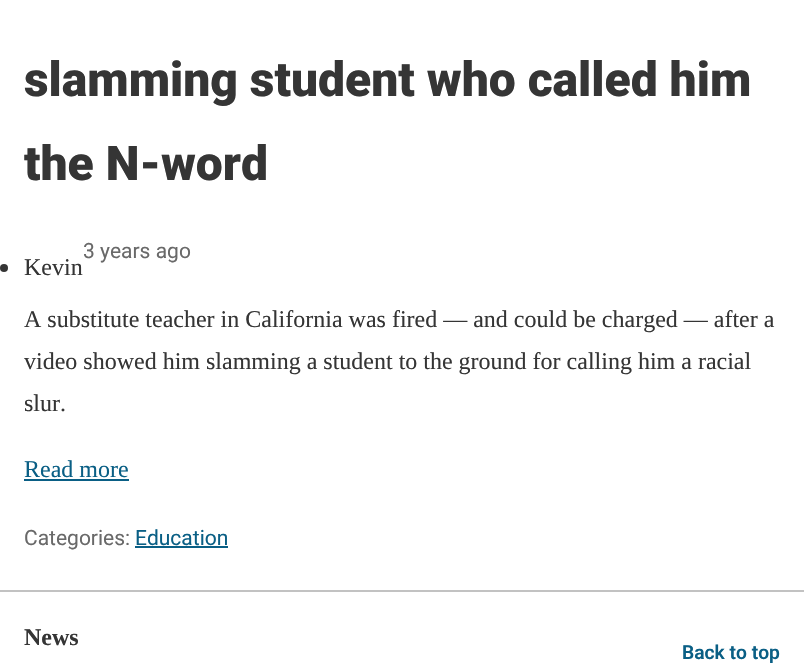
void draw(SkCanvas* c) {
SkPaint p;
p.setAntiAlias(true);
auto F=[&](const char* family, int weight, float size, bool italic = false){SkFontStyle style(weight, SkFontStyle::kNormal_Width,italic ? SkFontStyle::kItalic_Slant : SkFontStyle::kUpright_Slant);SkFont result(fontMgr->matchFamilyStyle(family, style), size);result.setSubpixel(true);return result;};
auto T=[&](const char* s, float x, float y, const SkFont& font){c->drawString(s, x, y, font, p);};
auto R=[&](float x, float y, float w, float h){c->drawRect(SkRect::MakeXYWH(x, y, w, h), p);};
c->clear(0xffffffff);
auto f1 = F("Roboto",900,48);
p.setColor(0xff353535);
T("slamming student who called him",24,96,f1);
T("the N-word",24,180,f1);
auto f2 = F("Roboto",400,21);
p.setColor(0xff696969);
T("3 years ago",83,258,f2);
p.setColor(0xff353535);
c->drawCircle(4,268,4,p);
auto f3 = F("Liberation Serif",400,24);
T("Kevin",24,275,f3);
T("A substitute teacher in California was fired — and could be charged — after a",24,327,f3);
T("video showed him slamming a student to the ground for calling him a racial",24,369,f3);
T("slur.",24,411,f3);
p.setColor(0xff0a5f85);
T("Read more",24,477,f3);
R(24,479,105,2);
p.setColor(0xff696969);
T("Categories:",24,545,f2);
p.setColor(0xff0a5f85);
T("Education",135,545,f2);
R(135,546,93,2);
p.setColor(0xffc2c2c2);
R(0,590,804,2);
auto f4 = F("Liberation Serif",700,24);
p.setColor(0xff353535);
T("News",24,645,f4);
auto f5 = F("Roboto",600,19.25);
p.setColor(0xff0a5f85);
T("Back to top",682,659,f5);
}
